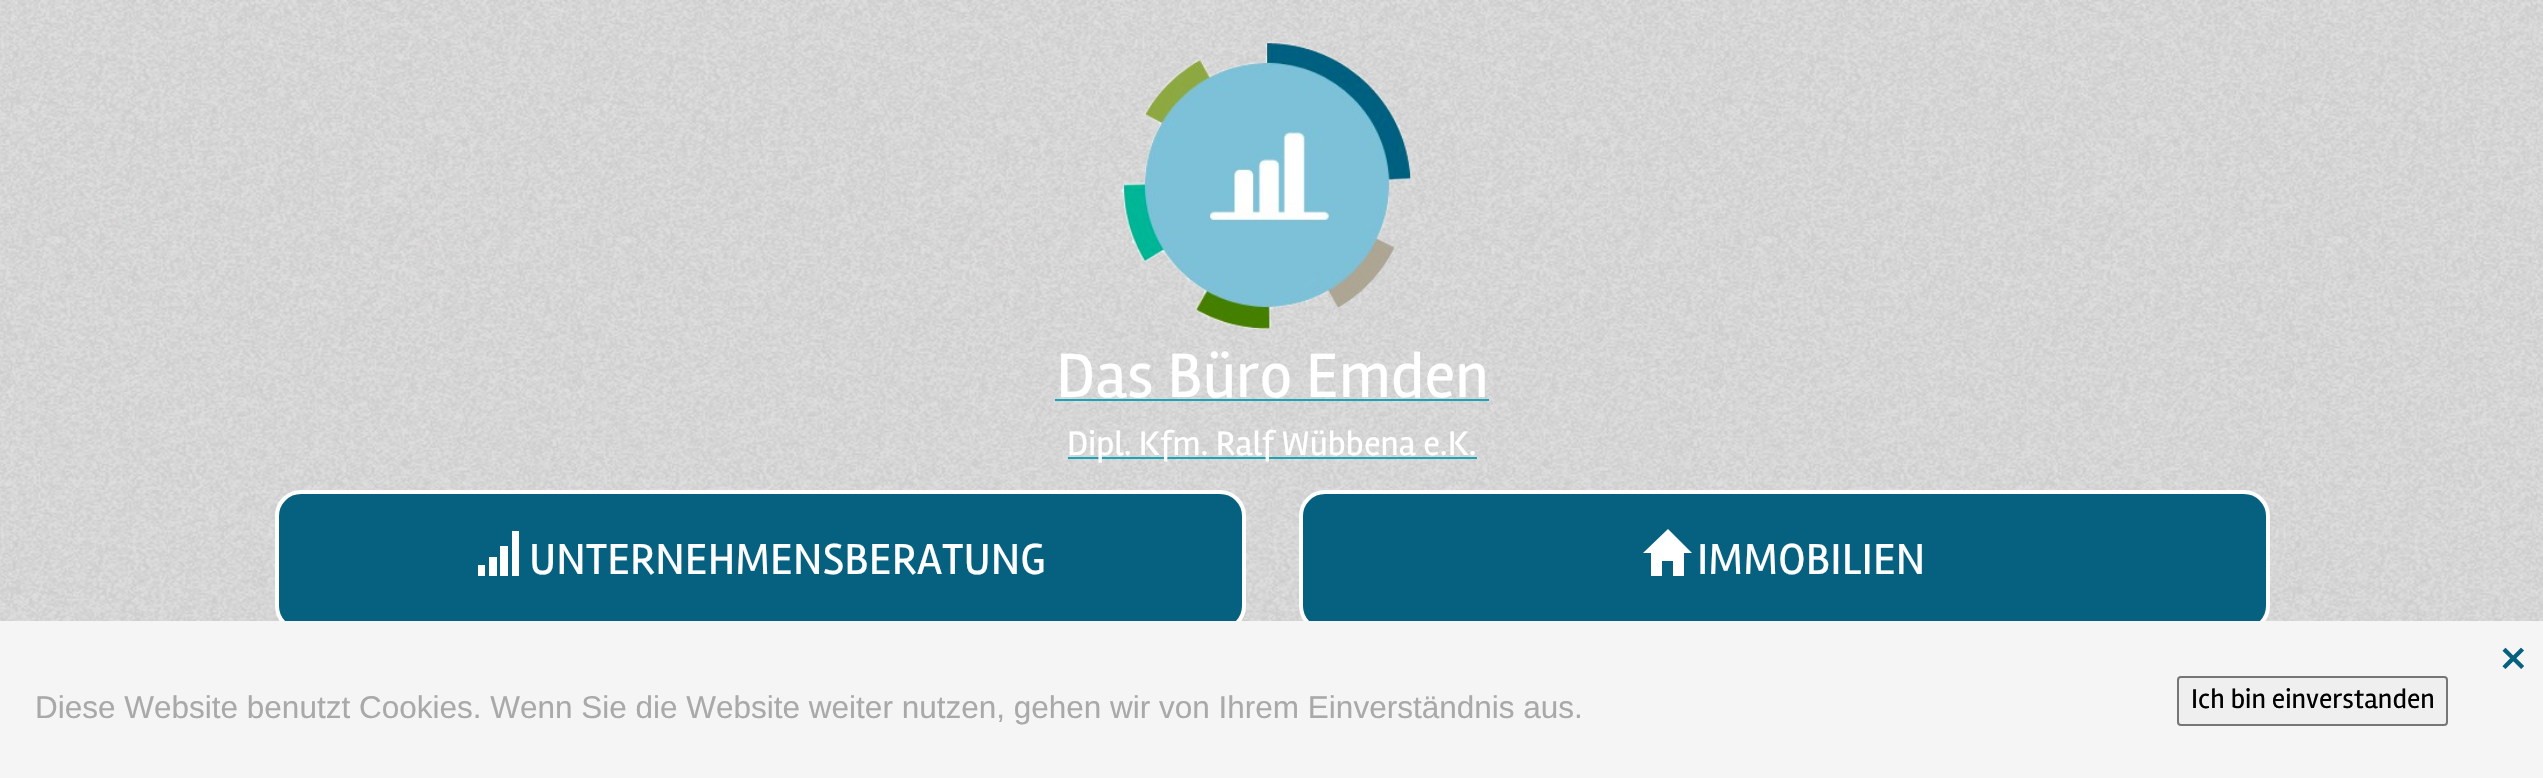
void draw(SkCanvas* c) {
SkPaint p;
p.setAntiAlias(true);
auto F=[&](const char* family, int weight, float size, bool italic = false){SkFontStyle style(weight, SkFontStyle::kNormal_Width,italic ? SkFontStyle::kItalic_Slant : SkFontStyle::kUpright_Slant);SkFont result(fontMgr->matchFamilyStyle(family, style), size);result.setSubpixel(true);return result;};
auto T=[&](const char* s, float x, float y, const SkFont& font){c->drawString(s, x, y, font, p);};
auto R=[&](float x, float y, float w, float h){c->drawRect(SkRect::MakeXYWH(x, y, w, h), p);};
auto I=[&](const char* path, float x, float y, float w, float h){auto image = SkImages::DeferredFromEncodedData(SkData::MakeFromFileName(path));c->drawImageRect(image, SkRect::MakeXYWH(x, y, w, h), SkSamplingOptions());};
auto P=[&](const char* data, bool evenOdd = false){SkPath result = *SkParsePath::FromSVGString(data);if (evenOdd) result.setFillType(SkPathFillType::kEvenOdd);return result;};
c->clear(0xffffffff);
I("1.png",0,0,2543,490);
I("2.png",1121,37,292,293);
auto f1 = F("Rambla",400,64.75);
p.setColor(0xffffffff);
T("Das Büro Emden",1056,397,f1);
p.setColor(0xff18a5b5);
R(1055,399,434,2);
R(1068,457,409,2);
auto f2 = F("Rambla",400,35);
p.setColor(0xffffffff);
T("Dipl. Kfm. Ralf Wübbena e.K.",1067,455,f2);
I("3.png",0,490,2543,131);
p.setColor(0xff05617f);
c->drawRoundRect(SkRect::MakeXYWH(277,492,967,138),24,24,p);
p.setStroke(true);
p.setStrokeWidth(4);
p.setColor(0xffffffff);
c->drawRoundRect(SkRect::MakeXYWH(277,492,967,138),24,24,p);
p.setStroke(false);
c->drawPath(P("M478 576h7v-11h-7zm11 0v-19h8v19zm11 0v-30h8v30zm12 0v-45h7v45z"),p);
auto f3 = F("Rambla",400,44.75);
T("UNTERNEHMENSBERATUNG",529,574,f3);
p.setColor(0xff05617f);
c->drawRoundRect(SkRect::MakeXYWH(1301,492,967,138),24,24,p);
p.setStroke(true);
p.setColor(0xffffffff);
c->drawRoundRect(SkRect::MakeXYWH(1301,492,967,138),24,24,p);
p.setStroke(false);
c->drawPath(P("M1643 553l25-24l24 24h-8v23h-11v-15h-11v15h-11v-23z"),p);
T("IMMOBILIEN",1697,574,f3);
p.setColor(0xfff5f5f5);
R(0,621,2543,157);
auto f4 = F("Rambla",400,52);
p.setColor(0xff05617f);
T("×",2500,674,f4);
auto f5 = F("Liberation Sans",400,31.5);
p.setColor(0xffa9a9a9);
T("Diese Website benutzt Cookies. Wenn Sie die Website weiter nutzen, gehen wir von Ihrem Einverständnis aus.",35,718,f5);
p.setColor(0xffefefef);
c->drawRoundRect(SkRect::MakeXYWH(2178,677,269,48),3,3,p);
p.setStroke(true);
p.setStrokeWidth(2);
p.setColor(0xff767676);
c->drawRoundRect(SkRect::MakeXYWH(2178,677,269,48),3,3,p);
auto f6 = F("Rambla",400,28);
p.setStroke(false);
p.setColor(0xff000000);
T("Ich bin einverstanden",2191,708,f6);
}
